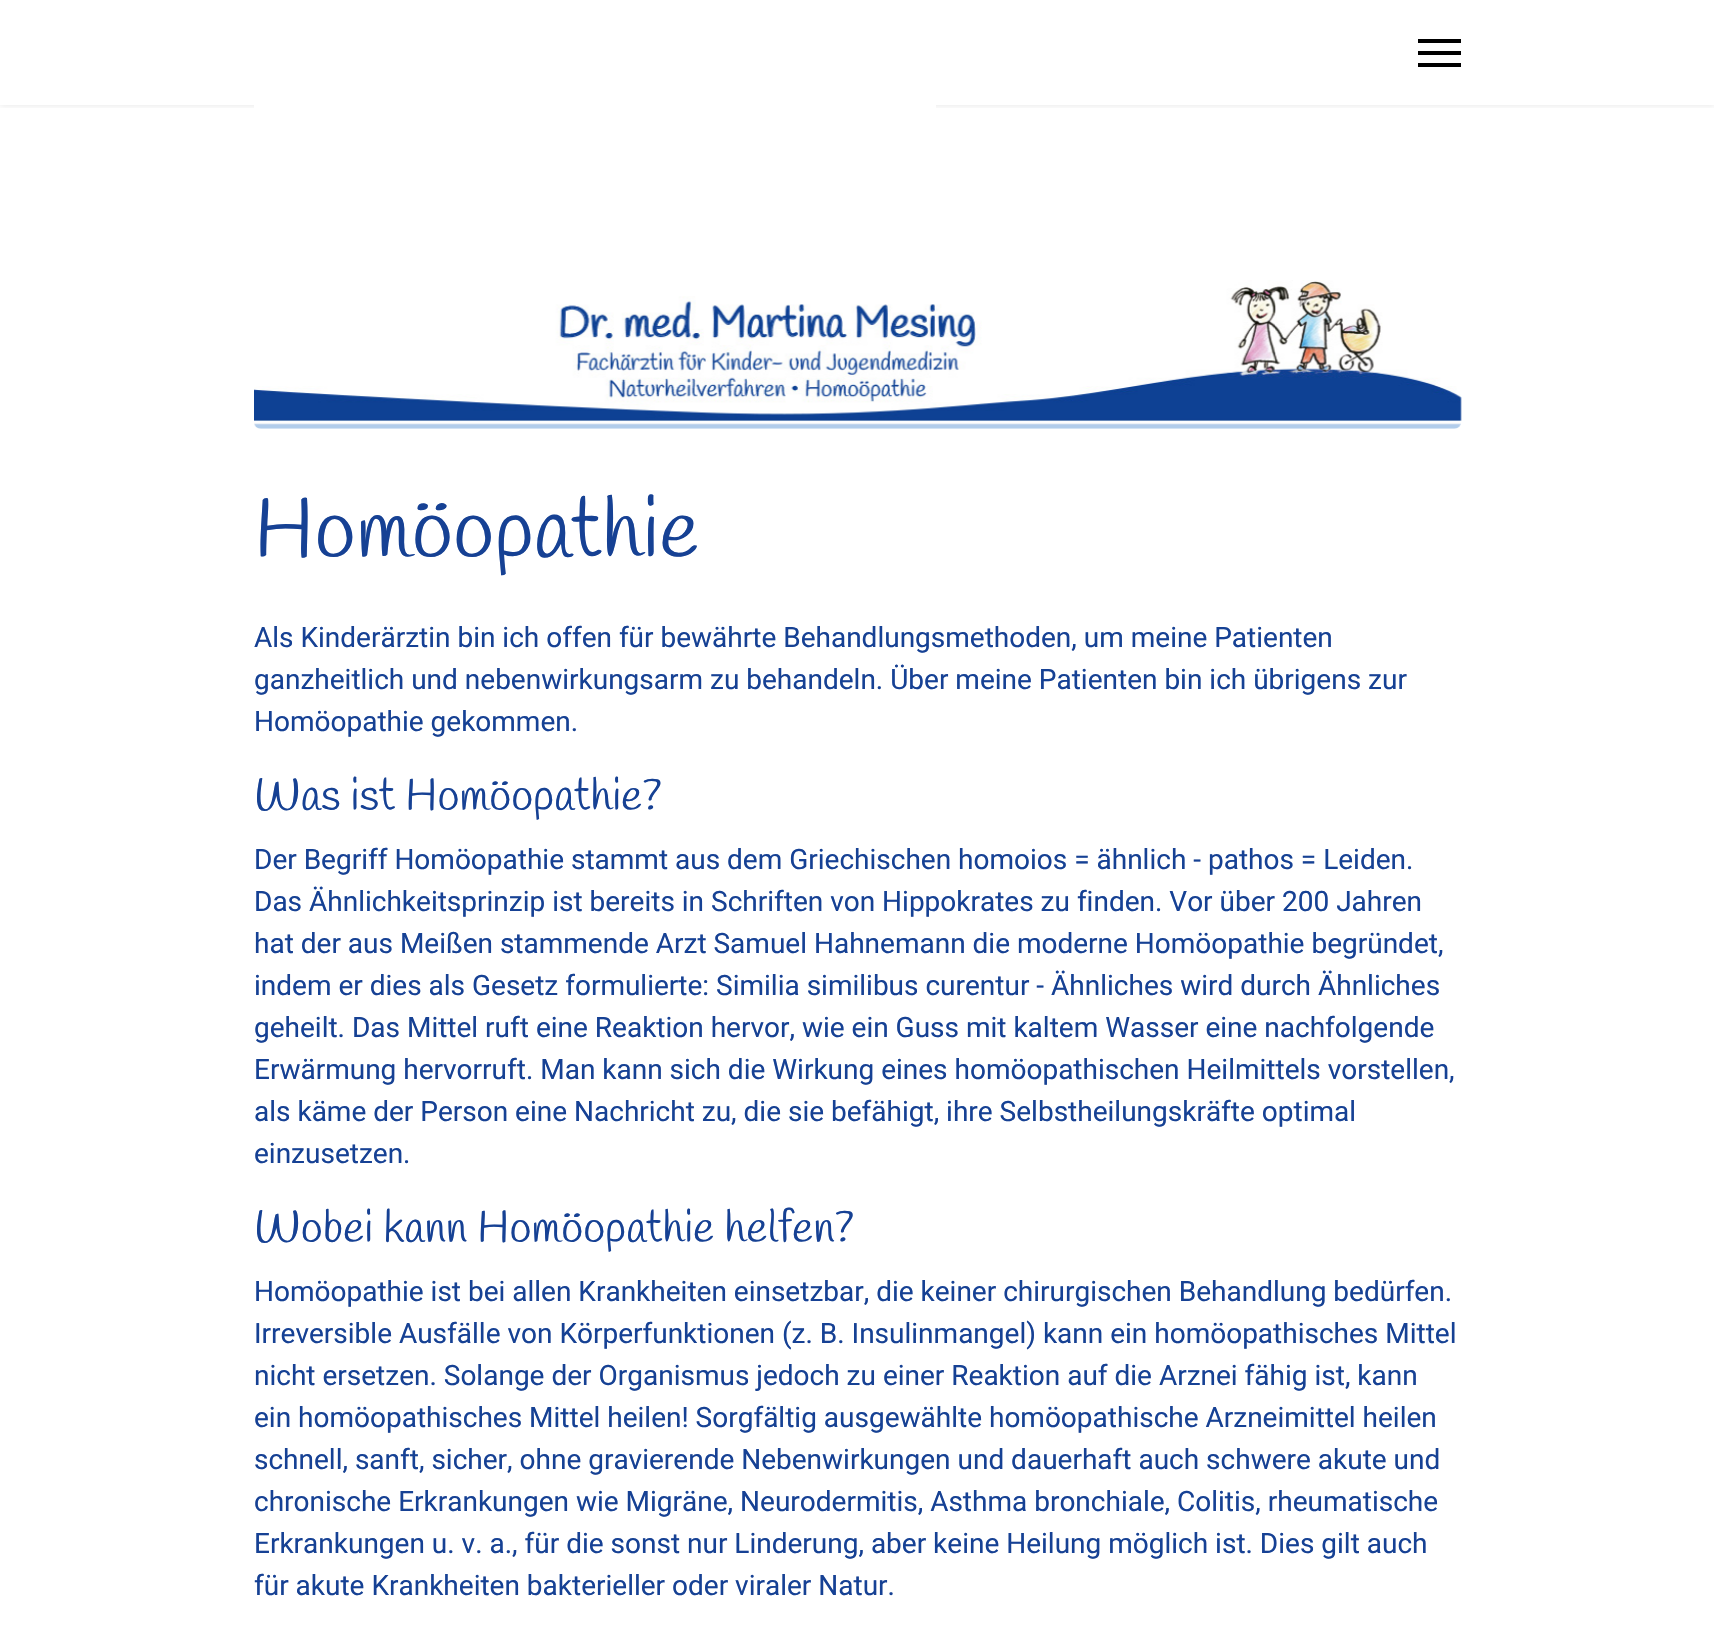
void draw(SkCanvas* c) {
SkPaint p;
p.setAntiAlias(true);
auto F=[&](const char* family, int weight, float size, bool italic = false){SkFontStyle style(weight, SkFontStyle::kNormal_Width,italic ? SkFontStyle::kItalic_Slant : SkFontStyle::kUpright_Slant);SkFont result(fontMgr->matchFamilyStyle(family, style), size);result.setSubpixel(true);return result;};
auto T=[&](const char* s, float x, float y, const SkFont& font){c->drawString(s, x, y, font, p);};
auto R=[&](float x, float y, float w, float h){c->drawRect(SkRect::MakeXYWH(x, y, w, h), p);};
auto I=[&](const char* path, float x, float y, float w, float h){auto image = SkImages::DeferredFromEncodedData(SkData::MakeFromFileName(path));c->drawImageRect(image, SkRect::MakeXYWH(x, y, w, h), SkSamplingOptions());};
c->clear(0xffffffff);
c->save();
c->clipRect(SkRect::MakeXYWH(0,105,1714,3));
p.setColor(0x1a000000);
p.setMaskFilter(SkMaskFilter::MakeBlur(kNormal_SkBlurStyle, 3.5));
c->drawRect(SkRect::MakeXYWH(0,0,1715,105),p);
p.setMaskFilter(nullptr);
c->restore();
p.setColor(0xff000000);
R(1418,39,43,4);
R(1418,51,43,4);
R(1418,63,43,4);
p.setColor(0xffffffff);
R(254,105,682,4);
I("1.png",254,280,1208,149);
auto f1 = F("Handlee",400,84);
p.setColor(0xff164194);
T("Homöopathie",254,557,f1);
auto f2 = F("Roboto",400,28);
T("Als Kinderärztin bin ich offen für bewährte Behandlungsmethoden, um meine Patienten",254,647,f2);
T("ganzheitlich und nebenwirkungsarm zu behandeln. Über meine Patienten bin ich übrigens zur",254,689,f2);
T("Homöopathie gekommen.",254,731,f2);
auto f3 = F("Handlee",400,44.75);
T("Was ist Homöopathie?",254,810,f3);
T("Der Begriff Homöopathie stammt aus dem Griechischen homoios = ähnlich - pathos = Leiden.",254,869,f2);
T("Das Ähnlichkeitsprinzip ist bereits in Schriften von Hippokrates zu finden. Vor über 200 Jahren",254,911,f2);
T("hat der aus Meißen stammende Arzt Samuel Hahnemann die moderne Homöopathie begründet,",254,953,f2);
T("indem er dies als Gesetz formulierte: Similia similibus curentur - Ähnliches wird durch Ähnliches",254,995,f2);
T("geheilt. Das Mittel ruft eine Reaktion hervor, wie ein Guss mit kaltem Wasser eine nachfolgende",254,1037,f2);
T("Erwärmung hervorruft. Man kann sich die Wirkung eines homöopathischen Heilmittels vorstellen,",254,1079,f2);
T("als käme der Person eine Nachricht zu, die sie befähigt, ihre Selbstheilungskräfte optimal",254,1121,f2);
T("einzusetzen.",254,1163,f2);
T("Wobei kann Homöopathie helfen?",254,1242,f3);
T("Homöopathie ist bei allen Krankheiten einsetzbar, die keiner chirurgischen Behandlung bedürfen.",254,1301,f2);
T("Irreversible Ausfälle von Körperfunktionen (z. B. Insulinmangel) kann ein homöopathisches Mittel",254,1343,f2);
T("nicht ersetzen. Solange der Organismus jedoch zu einer Reaktion auf die Arznei fähig ist, kann",254,1385,f2);
T("ein homöopathisches Mittel heilen! Sorgfältig ausgewählte homöopathische Arzneimittel heilen",254,1427,f2);
T("schnell, sanft, sicher, ohne gravierende Nebenwirkungen und dauerhaft auch schwere akute und",254,1469,f2);
T("chronische Erkrankungen wie Migräne, Neurodermitis, Asthma bronchiale, Colitis, rheumatische",254,1511,f2);
T("Erkrankungen u. v. a., für die sonst nur Linderung, aber keine Heilung möglich ist. Dies gilt auch",254,1553,f2);
T("für akute Krankheiten bakterieller oder viraler Natur.",254,1595,f2);
}
